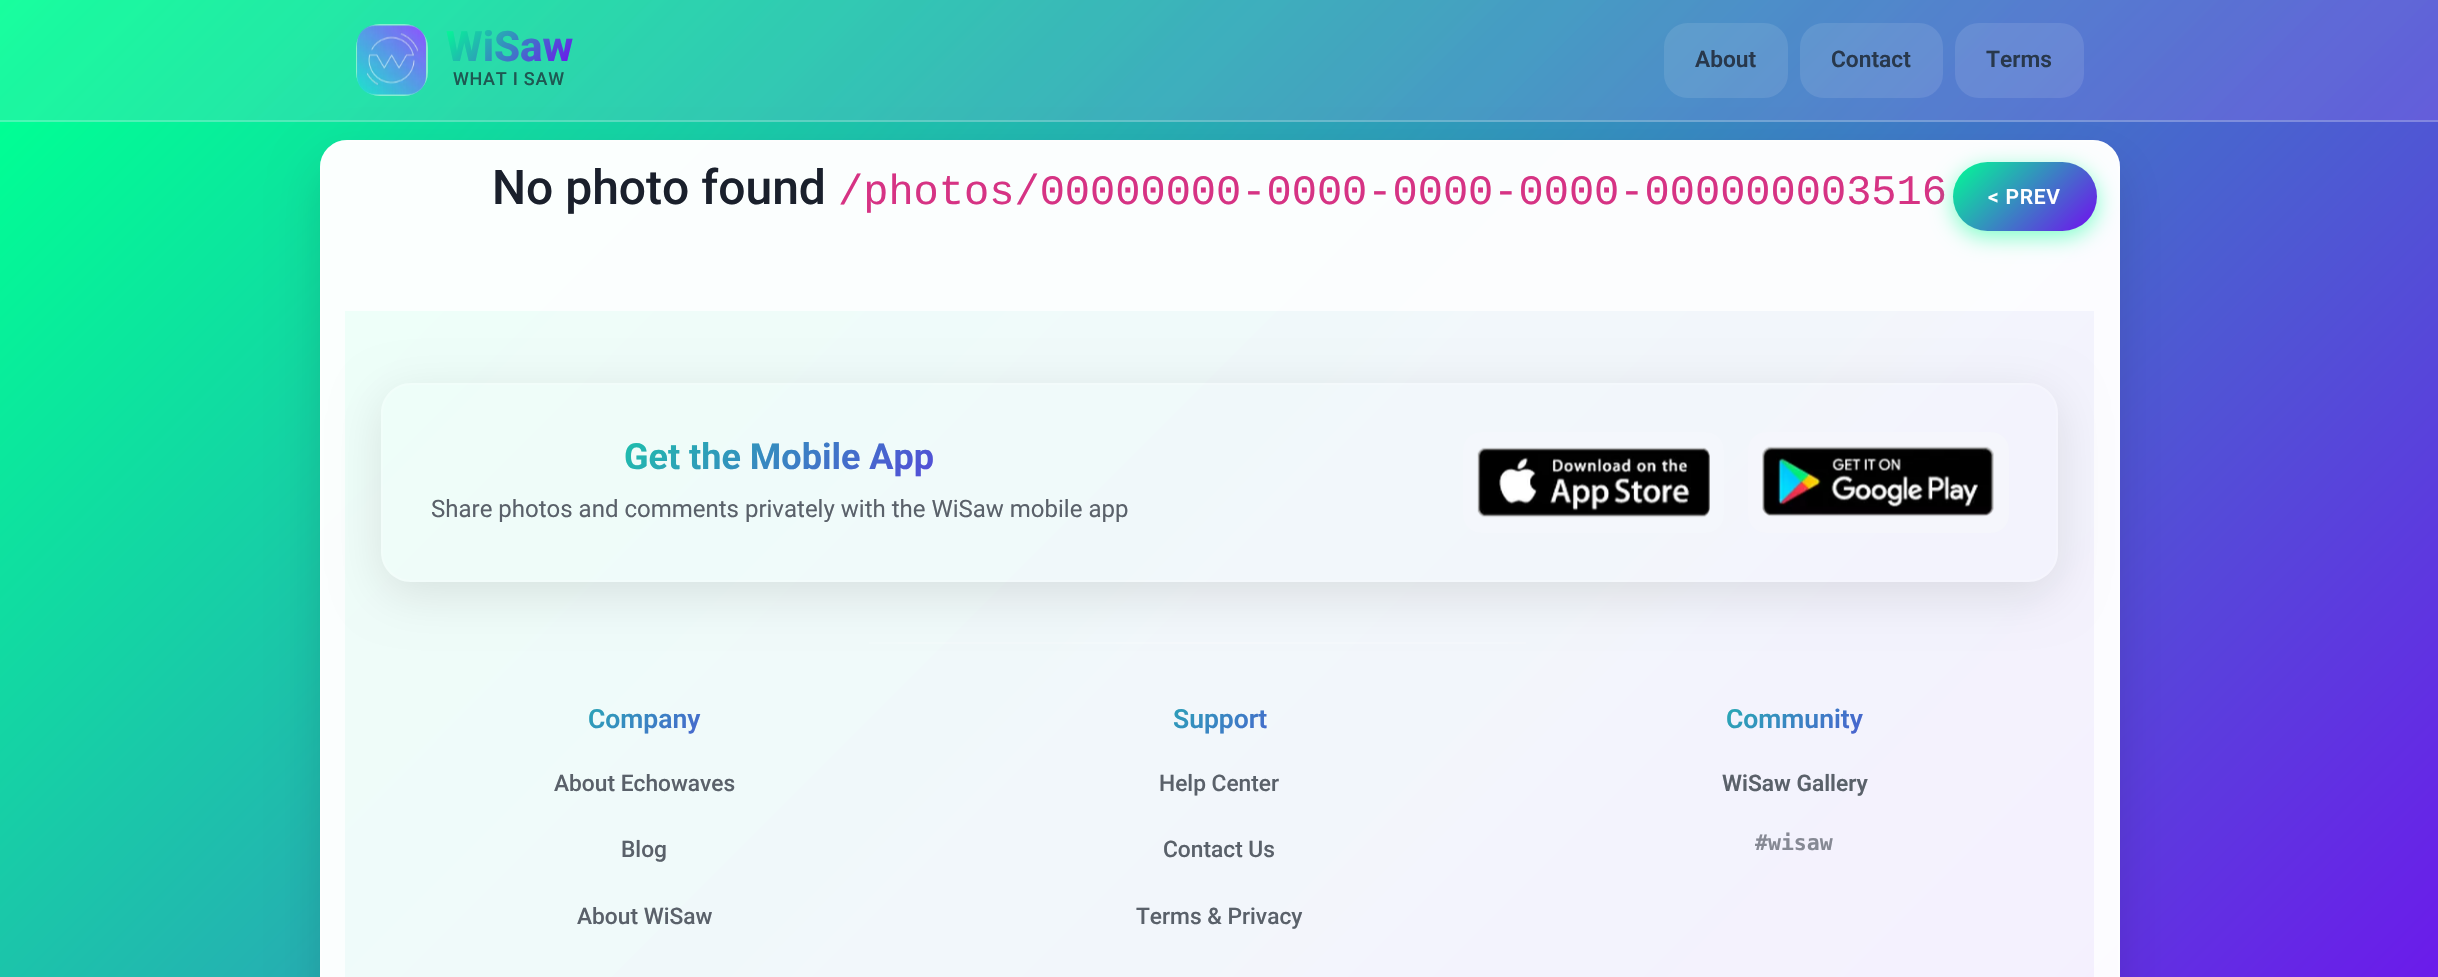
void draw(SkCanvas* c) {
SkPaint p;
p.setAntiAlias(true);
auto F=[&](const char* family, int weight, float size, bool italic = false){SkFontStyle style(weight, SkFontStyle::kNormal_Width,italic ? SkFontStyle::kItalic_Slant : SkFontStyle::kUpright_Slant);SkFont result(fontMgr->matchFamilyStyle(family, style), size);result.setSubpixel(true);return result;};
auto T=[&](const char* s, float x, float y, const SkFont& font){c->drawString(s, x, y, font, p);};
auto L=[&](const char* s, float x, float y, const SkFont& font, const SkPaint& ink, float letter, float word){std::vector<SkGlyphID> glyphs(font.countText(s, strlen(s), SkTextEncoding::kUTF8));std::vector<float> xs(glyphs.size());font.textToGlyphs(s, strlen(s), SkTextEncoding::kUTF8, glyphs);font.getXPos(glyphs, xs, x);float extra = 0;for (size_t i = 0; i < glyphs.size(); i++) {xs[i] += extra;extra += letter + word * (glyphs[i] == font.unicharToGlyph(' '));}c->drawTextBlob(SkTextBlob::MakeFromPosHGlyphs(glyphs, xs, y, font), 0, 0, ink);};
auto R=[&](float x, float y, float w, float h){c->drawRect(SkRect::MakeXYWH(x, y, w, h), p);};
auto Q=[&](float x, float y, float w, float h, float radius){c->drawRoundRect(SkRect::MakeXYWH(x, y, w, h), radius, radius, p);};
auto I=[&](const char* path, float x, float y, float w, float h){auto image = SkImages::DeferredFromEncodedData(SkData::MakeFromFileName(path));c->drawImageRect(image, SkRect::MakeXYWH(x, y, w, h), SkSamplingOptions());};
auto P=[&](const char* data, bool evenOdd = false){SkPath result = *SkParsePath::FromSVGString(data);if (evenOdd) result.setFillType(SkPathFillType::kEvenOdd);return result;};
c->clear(0xffffffff);
{
const SkColor colors[] = {0xff00ff94,0xff720cf0};
const float stops[] = {0,1};
const SkPoint ends[] = {{312,-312}, {2127,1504}};
p.setShader(SkGradientShader::MakeLinear(ends, colors, stops, 2, SkTileMode::kClamp));
p.setAlpha(255);
}
R(0,0,2438,122);
{
const SkColor colors[] = {0xff00ff94,0xff720cf0};
const float stops[] = {0,1};
const SkPoint ends[] = {{342,-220}, {2097,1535}};
p.setShader(SkGradientShader::MakeLinear(ends, colors, stops, 2, SkTileMode::kClamp));
p.setAlpha(255);
}
R(0,122,2438,855);
c->save();
c->clipPath(P("M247 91h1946v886h-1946zm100 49h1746c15 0 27 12 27 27v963c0 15-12 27-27 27h-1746c-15 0-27-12-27-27v-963c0-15 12-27 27-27z",true),true);
p.setShader(nullptr);
p.setColor(0x1f000000);
p.setMaskFilter(SkMaskFilter::MakeBlur(kNormal_SkBlurStyle, 24));
c->drawRoundRect(SkRect::MakeXYWH(320,164,1800,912),27,27,p);
p.setMaskFilter(nullptr);
c->restore();
p.setColor(0x1affffff);
R(0,0,2438,122);
p.setColor(0x33ffffff);
R(0,120,2438,2);
{
const SkColor colors[] = {0x1a00ff94,0x1a720cf0};
const float stops[] = {0,1};
const SkPoint ends[] = {{580,-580}, {1859,700}};
p.setShader(SkGradientShader::MakeLinear(ends, colors, stops, 2, SkTileMode::kClamp));
p.setAlpha(255);
}
R(0,0,2438,120);
p.setShader(nullptr);
p.setColor(0x33ffffff);
Q(356,24,72,72,24);
p.setStroke(true);
p.setStrokeWidth(2);
p.setColor(0x4dffffff);
c->drawRoundRect(SkRect::MakeXYWH(357,25,70,70),23,23,p);
I("1.png",357,25,69,70);
auto f1 = F("Roboto",800,42);
p.setStroke(false);
{
const SkColor colors[] = {0xff00ff94,0xff720cf0};
const float stops[] = {0,1};
const SkPoint ends[] = {{467,4.8}, {551,89}};
p.setShader(SkGradientShader::MakeLinear(ends, colors, stops, 2, SkTileMode::kClamp));
p.setAlpha(255);
}
T("WiSaw",446,61,f1);
auto f2 = F("Roboto",500,18);
p.setShader(nullptr);
p.setColor(0xff1e5852);
L("WHAT I SAW",453,85,f2,p,.75,0);
p.setColor(0x1affffff);
Q(1664,23,124,75,24);
auto f3 = F("Roboto",600,22.75);
p.setColor(0xff28384c);
T("About",1695,67,f3);
p.setColor(0x1affffff);
Q(1800,23,143,75,24);
p.setColor(0xff28384c);
T("Contact",1831,67,f3);
p.setColor(0x1affffff);
Q(1955,23,129,75,24);
p.setColor(0xff28384c);
T("Terms",1986,67,f3);
p.setColor(0xfaffffff);
Q(320,140,1800,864,27);
p.setStroke(true);
p.setColor(0x66ffffff);
c->drawRoundRect(SkRect::MakeXYWH(321,141,1798,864),26,26,p);
auto f4 = F("Roboto",500,48);
p.setStroke(false);
p.setColor(0xff1a202c);
T("No photo found",492,204,f4);
auto f5 = F("Liberation Mono",400,42);
p.setColor(0xffd63384);
T("/photos/00000000-0000-0000-0000-000000003516",838,204,f5);
{
const SkColor colors[] = {0x0d00ff94,0x0d720cf0};
const float stops[] = {0,1};
const SkPoint ends[] = {{579,76}, {1860,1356}};
p.setShader(SkGradientShader::MakeLinear(ends, colors, stops, 2, SkTileMode::kClamp));
p.setAlpha(255);
}
R(345,311,1749,666);
{
const SkColor colors[] = {0x00ffffff,0x4dffffff,0x00ffffff};
const float stops[] = {0,.5,1};
const SkPoint ends[] = {{381,643}, {2058,643}};
p.setShader(SkGradientShader::MakeLinear(ends, colors, stops, 3, SkTileMode::kClamp));
p.setAlpha(255);
}
R(869,642,657,2);
c->save();
c->clipPath(P("M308 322h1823v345h-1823zm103 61h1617c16.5 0 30 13.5 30 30v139c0 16.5-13.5 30-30 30h-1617c-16.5 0-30-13.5-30-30v-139c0-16.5 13.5-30 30-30z",true),true);
p.setShader(nullptr);
p.setColor(0x1a000000);
p.setMaskFilter(SkMaskFilter::MakeBlur(kNormal_SkBlurStyle, 24));
c->drawRoundRect(SkRect::MakeXYWH(381,395,1677,199),30,30,p);
p.setMaskFilter(nullptr);
c->restore();
p.setStroke(true);
p.setColor(0x33ffffff);
c->drawRoundRect(SkRect::MakeXYWH(382,384,1675,197),29,29,p);
auto f6 = F("Roboto",700,36);
p.setStroke(false);
{
const SkColor colors[] = {0xff00ff94,0xff720cf0};
const float stops[] = {0,1};
const SkPoint ends[] = {{594,273}, {964,643}};
p.setShader(SkGradientShader::MakeLinear(ends, colors, stops, 2, SkTileMode::kClamp));
p.setAlpha(255);
}
T("Get the Mobile App",624,469,f6);
auto f7 = F("Roboto",400,24);
p.setShader(nullptr);
p.setColor(0xff5a616a);
T("Share photos and comments privately with the WiSaw mobile app",431,517,f7);
p.setColor(0xfff4f7fc);
Q(1463,432,261,101,18);
I("2.png",1477,447,233,71);
p.setColor(0xfff5f6fc);
Q(1748,432,261,101,18);
I("3.png",1762,446,232,71);
auto f8 = F("Roboto",600,26.5);
{
const SkColor colors[] = {0xff00ff94,0xff720cf0};
const float stops[] = {0,1};
const SkPoint ends[] = {{505,580}, {784,859}};
p.setShader(SkGradientShader::MakeLinear(ends, colors, stops, 2, SkTileMode::kClamp));
p.setAlpha(255);
}
T("Company",588,728,f8);
auto f9 = F("Roboto",500,22.75);
p.setShader(nullptr);
p.setColor(0xff5a616a);
T("About Echowaves",554,791,f9);
T("Blog",621,857,f9);
T("About WiSaw",577,924,f9);
{
const SkColor colors[] = {0xff00ff94,0xff720cf0};
const float stops[] = {0,1};
const SkPoint ends[] = {{1080,580}, {1359,859}};
p.setShader(SkGradientShader::MakeLinear(ends, colors, stops, 2, SkTileMode::kClamp));
p.setAlpha(255);
}
T("Support",1173,728,f8);
p.setShader(nullptr);
p.setColor(0xff5a616a);
T("Help Center",1159,791,f9);
T("Contact Us",1163,857,f9);
T("Terms & Privacy",1136,924,f9);
{
const SkColor colors[] = {0xff00ff94,0xff720cf0};
const float stops[] = {0,1};
const SkPoint ends[] = {{1655,580}, {1934,859}};
p.setShader(SkGradientShader::MakeLinear(ends, colors, stops, 2, SkTileMode::kClamp));
p.setAlpha(255);
}
T("Community",1726,728,f8);
p.setShader(nullptr);
p.setColor(0xff5a616a);
T("WiSaw Gallery",1722,791,f3);
auto f10 = F("DejaVu Sans Mono",700,21.5);
p.setColor(0xff868994);
T("#wisaw",1755,850,f10);
p.setColor(0x8000ff94);
p.setMaskFilter(SkMaskFilter::MakeBlur(kNormal_SkBlurStyle, 11));
c->drawRoundRect(SkRect::MakeXYWH(1953,168,144,69),34.5,34.5,p);
p.setMaskFilter(nullptr);
{
const SkColor colors[] = {0xff00ff94,0xff720cf0};
const float stops[] = {0,1};
const SkPoint ends[] = {{1972,143}, {2078,250}};
p.setShader(SkGradientShader::MakeLinear(ends, colors, stops, 2, SkTileMode::kClamp));
p.setAlpha(255);
}
Q(1953,162,144,69,34.5);
auto f11 = F("Roboto",600,21);
p.setShader(nullptr);
p.setColor(0xffffffff);
L("< PREV",1988,204,f11,p,.75,0);
}
